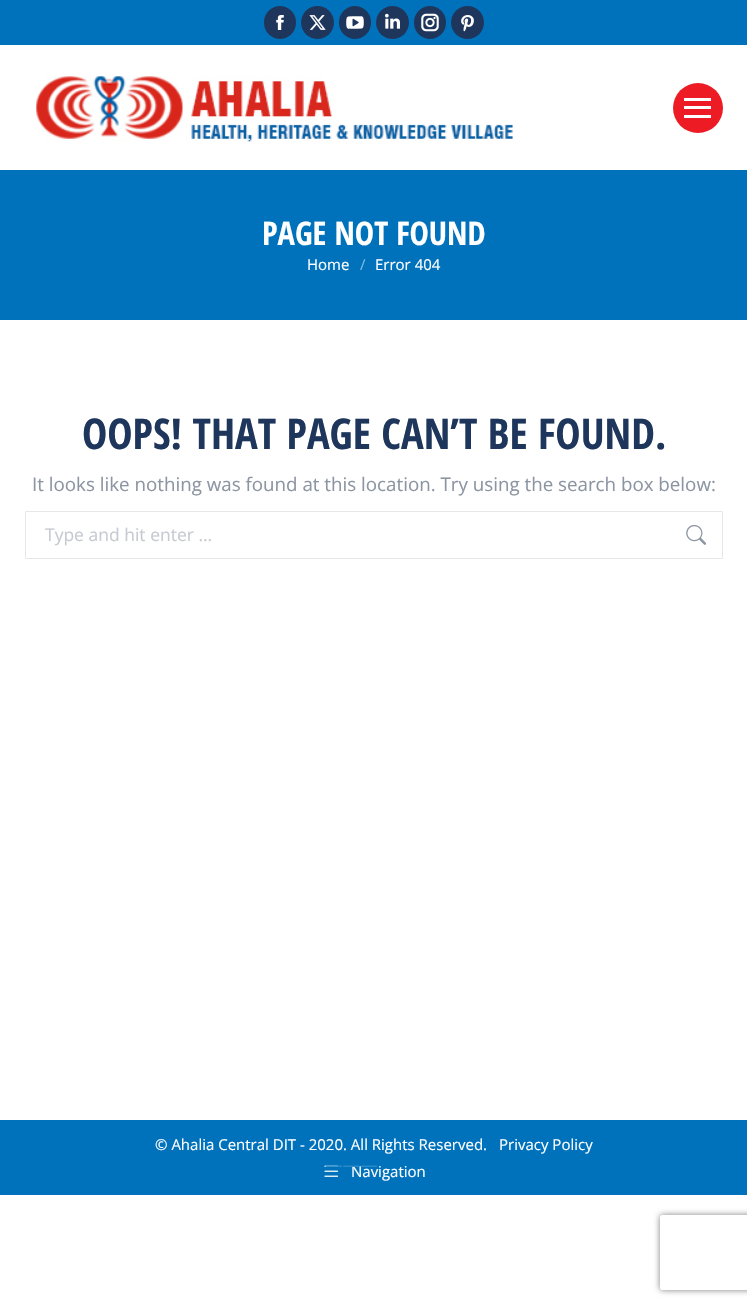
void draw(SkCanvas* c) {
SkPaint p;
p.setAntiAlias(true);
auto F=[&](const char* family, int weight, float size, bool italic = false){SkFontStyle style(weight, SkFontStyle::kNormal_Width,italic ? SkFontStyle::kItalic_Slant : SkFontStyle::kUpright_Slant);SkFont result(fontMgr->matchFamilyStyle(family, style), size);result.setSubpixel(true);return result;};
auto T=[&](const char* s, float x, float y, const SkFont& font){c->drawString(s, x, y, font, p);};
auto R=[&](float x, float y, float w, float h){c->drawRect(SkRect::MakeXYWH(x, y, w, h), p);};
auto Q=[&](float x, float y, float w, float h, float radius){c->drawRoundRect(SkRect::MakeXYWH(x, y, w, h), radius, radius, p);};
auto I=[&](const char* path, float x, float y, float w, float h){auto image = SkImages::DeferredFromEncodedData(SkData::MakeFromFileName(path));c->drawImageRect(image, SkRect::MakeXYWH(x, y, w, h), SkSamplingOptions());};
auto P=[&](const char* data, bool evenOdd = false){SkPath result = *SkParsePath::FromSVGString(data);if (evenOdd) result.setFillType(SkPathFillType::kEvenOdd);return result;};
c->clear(0xffffffff);
p.setColor(0xff0072bc);
R(0,0,747,45);
p.setColor(0xff1f365c);
Q(264,6,32,33,16);
I("1.png",276,15,8,15);
c->drawCircle(317.5,22.5,16.5,p);
I("2.png",309,15,17,15);
Q(339,6,32,33,16);
I("3.png",346,16,18,13);
c->drawCircle(392.5,22.5,16.5,p);
I("4.png",385,13,15,16);
Q(414,6,32,33,16);
I("5.png",421,13,18,19);
c->drawCircle(467.5,22.5,16.5,p);
I("6.png",461,15,13,17);
I("7.png",36,76,477,66);
p.setColor(0xffed1c24);
c->drawCircle(698,108,25,p);
p.setColor(0xffffffff);
R(684,98,27,3);
R(684,106,27,3);
R(684,115,27,3);
p.setColor(0xff0072bc);
R(0,170,747,150);
auto f1 = F("Open Sans Condensed",700,32.5);
p.setColor(0xffffffff);
T("PAGE NOT FOUND",262,245,f1);
auto f2 = F("Open Sans",400,15);
T("Home",307,270,f2);
p.setColor(0xff80b9de);
T("/",360,270,f2);
p.setColor(0xffffffff);
T("Error 404",375,270,f2);
auto f3 = F("Open Sans Condensed",700,42.5);
p.setColor(0xff1f365c);
T("OOPS! THAT PAGE CAN’T BE FOUND.",82,449,f3);
auto f4 = F("Open Sans",400,18.75);
p.setColor(0xff8c95a2);
T("It looks like nothing was found at this location. Try using the search box below:",32,491,f4);
p.setStroke(true);
p.setStrokeWidth(1);
p.setColor(0xffe7e7e7);
c->drawRoundRect(SkRect::MakeXYWH(25.5,511.5,697,47),.5,.5,p);
auto f5 = F("Open Sans",400,17.5);
p.setStroke(false);
p.setColor(0xffc6cad1);
T("Type and hit enter …",45,541,f5);
I("8.png",686,525,20,20);
p.setColor(0xff0072bc);
R(0,1120,747,75);
p.setColor(0xffffffff);
T("© Ahalia Central DIT - 2020. All Rights Reserved.",155,1150,f2);
T("Privacy Policy",499,1150,f2);
I("9.png",324,1165,15,12);
T("Navigation",351,1177,f2);
p.setColor(0xff2e8cc8);
T("———",325,1171,f5);
c->save();
c->clipPath(P("M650 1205h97v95h-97zm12.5 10h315c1.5 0 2.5 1 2.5 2.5v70c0 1.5-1 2.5-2.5 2.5h-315c-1.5 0-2.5-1-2.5-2.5v-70c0-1.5 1-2.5 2.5-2.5z",true),true);
p.setColor(0xff808080);
p.setMaskFilter(SkMaskFilter::MakeBlur(kNormal_SkBlurStyle, 3));
c->drawRoundRect(SkRect::MakeXYWH(660,1215,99,75),2.5,2.5,p);
p.setMaskFilter(nullptr);
c->restore();
}
